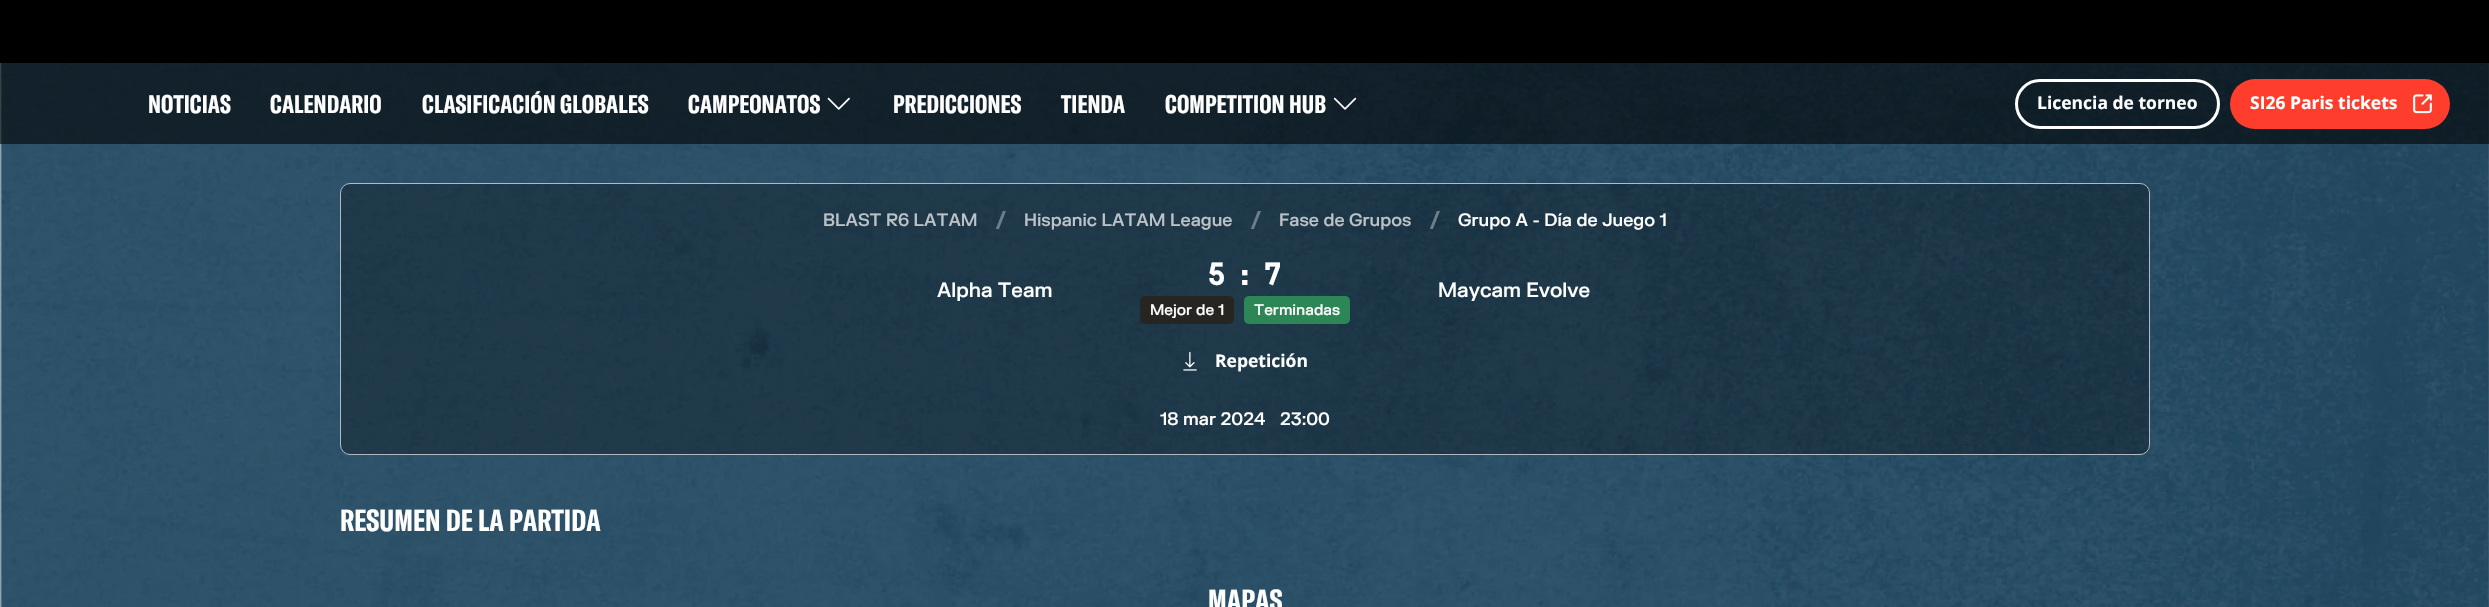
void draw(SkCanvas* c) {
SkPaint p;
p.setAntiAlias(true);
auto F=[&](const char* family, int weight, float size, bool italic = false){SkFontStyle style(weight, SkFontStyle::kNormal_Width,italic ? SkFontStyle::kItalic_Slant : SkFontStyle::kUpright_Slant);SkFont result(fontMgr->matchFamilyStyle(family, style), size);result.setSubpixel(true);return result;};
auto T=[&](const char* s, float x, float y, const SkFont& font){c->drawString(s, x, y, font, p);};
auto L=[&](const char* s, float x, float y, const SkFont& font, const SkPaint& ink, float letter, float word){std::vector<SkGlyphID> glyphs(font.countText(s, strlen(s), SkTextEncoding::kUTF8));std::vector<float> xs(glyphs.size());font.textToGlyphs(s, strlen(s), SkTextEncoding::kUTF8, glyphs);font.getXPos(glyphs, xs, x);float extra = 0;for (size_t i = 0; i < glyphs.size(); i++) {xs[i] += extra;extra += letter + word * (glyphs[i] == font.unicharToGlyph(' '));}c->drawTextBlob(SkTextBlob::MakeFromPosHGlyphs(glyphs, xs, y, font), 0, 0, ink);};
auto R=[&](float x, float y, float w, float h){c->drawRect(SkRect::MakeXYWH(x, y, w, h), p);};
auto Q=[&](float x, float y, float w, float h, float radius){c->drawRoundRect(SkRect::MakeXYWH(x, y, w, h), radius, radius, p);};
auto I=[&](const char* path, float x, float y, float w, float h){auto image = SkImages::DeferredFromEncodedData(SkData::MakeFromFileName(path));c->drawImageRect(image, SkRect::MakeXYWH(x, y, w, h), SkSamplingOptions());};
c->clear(0xffffffff);
I("1.png",0,63,2489,544);
p.setColor(0xff000000);
R(0,0,2489,63);
p.setColor(0x99000000);
R(0,63,2489,81);
auto f1 = F("GT America",700,25);
p.setColor(0xfffefefe);
L("NOTICIAS",148,113,f1,p,.1,0);
L("CALENDARIO",270,113,f1,p,.1,0);
L("CLASIFICACIÓN GLOBALES",422,113,f1,p,.1,0);
L("CAMPEONATOS",688,113,f1,p,.1,0);
I("2.png",827,97,23,13);
L("PREDICCIONES",893,113,f1,p,.1,0);
L("TIENDA",1061,113,f1,p,.1,0);
L("COMPETITION HUB",1165,113,f1,p,.1,0);
I("3.png",1333,97,24,13);
p.setStroke(true);
p.setStrokeWidth(3);
c->drawRoundRect(SkRect::MakeXYWH(2016.5,80.5,202,47),23.5,23.5,p);
auto f2 = F("Open Sans",700,17.5);
p.setStroke(false);
T("Licencia de torneo",2037,109,f2);
p.setColor(0xffff3d2c);
Q(2230,79,220,50,25);
p.setColor(0xfffefefe);
T("SI26 Paris tickets",2250,109,f2);
I("4.png",2413,94,19,20);
p.setColor(0x4d000000);
c->drawRoundRect(SkRect::MakeXYWH(340.5,183.5,1809,271),9.5,9.5,p);
p.setStroke(true);
p.setStrokeWidth(1);
p.setColor(0xffb0bac6);
c->drawRoundRect(SkRect::MakeXYWH(340.5,183.5,1809,271),9.5,9.5,p);
auto f3 = F("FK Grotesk",500,17.5);
p.setStroke(false);
p.setColor(0xffbcc3c8);
T("BLAST R6 LATAM",823,226,f3);
auto f4 = F("FK Grotesk",500,25);
p.setColor(0xff6d7e89);
T("/",995,229,f4);
p.setColor(0xffbcc3c8);
T("Hispanic LATAM League",1024,226,f3);
p.setColor(0xff6d7e89);
T("/",1250,229,f4);
p.setColor(0xffbcc3c8);
T("Fase de Grupos",1279,226,f3);
p.setColor(0xff6d7e89);
T("/",1429,229,f4);
p.setColor(0xfffefefe);
T("Grupo A - Día de Juego 1",1458,226,f3);
auto f5 = F("FK Grotesk",500,20);
T("Alpha Team",937,297,f5);
auto f6 = F("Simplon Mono",700,32);
T("5",1207,285,f6);
T(":",1235,285,f6);
T("7",1263,285,f6);
p.setColor(0xff272521);
Q(1140,296,94,28,5);
auto f7 = F("FK Grotesk",500,15);
p.setColor(0xfffefefe);
T("Mejor de 1",1150,315,f7);
p.setColor(0xff2d8656);
Q(1244,296,106,28,5);
p.setColor(0xfffefefe);
T("Terminadas",1254,315,f7);
T("Maycam Evolve",1438,297,f5);
I("5.png",1183,351,14,20);
T("Repetición",1215,367,f2);
T("18 mar 2024",1160,425,f3);
T("23:00",1280,425,f3);
auto f8 = F("GT America",700,30);
L("RESUMEN DE LA PARTIDA",340,531,f8,p,.1,0);
L("MAPAS",1208,611,f8,p,.1,0);
}
